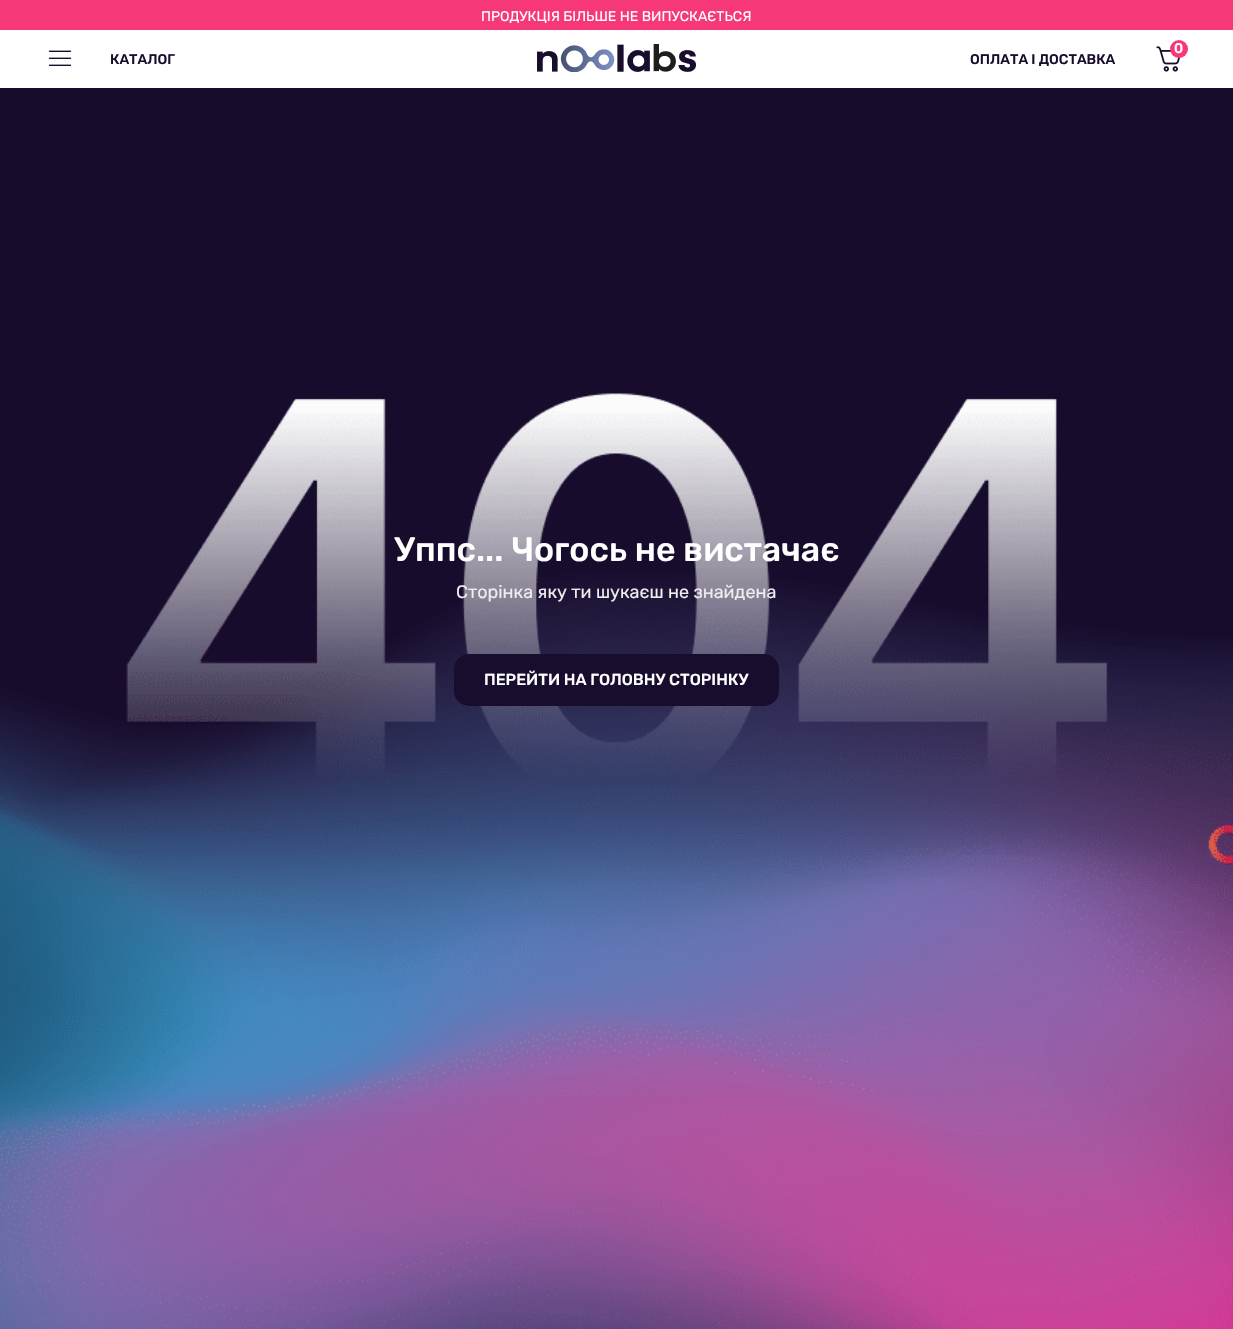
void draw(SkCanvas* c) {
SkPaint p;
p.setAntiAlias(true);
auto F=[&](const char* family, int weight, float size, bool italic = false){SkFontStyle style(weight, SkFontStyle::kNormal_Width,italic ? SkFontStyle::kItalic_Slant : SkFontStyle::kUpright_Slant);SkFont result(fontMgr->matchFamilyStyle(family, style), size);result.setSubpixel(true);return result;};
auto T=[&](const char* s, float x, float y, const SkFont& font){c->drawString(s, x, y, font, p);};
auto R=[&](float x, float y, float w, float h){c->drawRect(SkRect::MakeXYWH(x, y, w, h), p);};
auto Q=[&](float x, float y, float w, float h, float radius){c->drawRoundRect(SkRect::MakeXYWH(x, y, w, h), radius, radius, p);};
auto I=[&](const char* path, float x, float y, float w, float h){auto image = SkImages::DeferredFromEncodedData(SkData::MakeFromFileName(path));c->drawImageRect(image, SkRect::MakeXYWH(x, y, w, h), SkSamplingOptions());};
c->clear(0xffffffff);
p.setColor(0xfff63879);
R(0,0,1233,30);
auto f1 = F("Rubik",400,14);
p.setColor(0xffffffff);
T("ПРОДУКЦІЯ БІЛЬШЕ НЕ ВИПУСКАЄТЬСЯ",481,21,f1);
I("1.png",48,50,24,16);
auto f2 = F("Rubik",500,14);
p.setColor(0xff190d2d);
T("КАТАЛОГ",110,64,f2);
I("2.png",537,44,159,28);
I("3.png",1156,46,25,26);
p.setColor(0xfff63878);
c->drawCircle(1179,49,9,p);
p.setColor(0xffffffff);
T("0",1174,53,f2);
p.setColor(0xff190d2d);
T("ОПЛАТА І ДОСТАВКА",970,64,f2);
I("4.png",0,88,1233,1241);
auto f3 = F("Rubik",500,34);
p.setColor(0xffffffff);
T("Уппс... Чогось не вистачає",394,561,f3);
auto f4 = F("Rubik",400,18);
p.setColor(0xffeeedef);
T("Сторінка яку ти шукаєш не знайдена",456,598,f4);
p.setColor(0xff190d2d);
Q(454,654,325,52,15);
auto f5 = F("Rubik",500,16);
p.setColor(0xffffffff);
T("ПЕРЕЙТИ НА ГОЛОВНУ СТОРІНКУ",484,685,f5);
}
